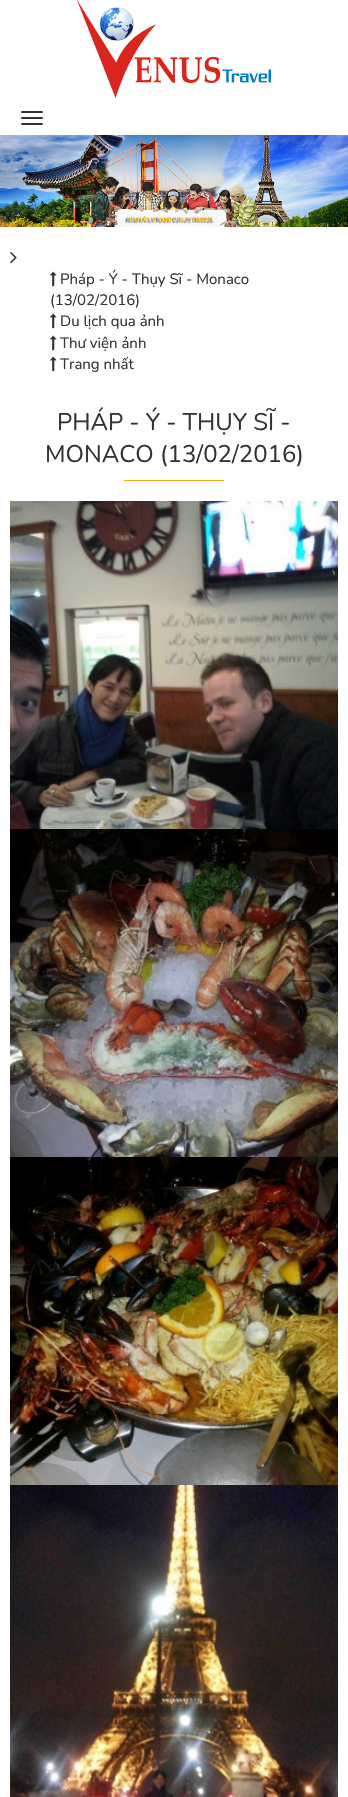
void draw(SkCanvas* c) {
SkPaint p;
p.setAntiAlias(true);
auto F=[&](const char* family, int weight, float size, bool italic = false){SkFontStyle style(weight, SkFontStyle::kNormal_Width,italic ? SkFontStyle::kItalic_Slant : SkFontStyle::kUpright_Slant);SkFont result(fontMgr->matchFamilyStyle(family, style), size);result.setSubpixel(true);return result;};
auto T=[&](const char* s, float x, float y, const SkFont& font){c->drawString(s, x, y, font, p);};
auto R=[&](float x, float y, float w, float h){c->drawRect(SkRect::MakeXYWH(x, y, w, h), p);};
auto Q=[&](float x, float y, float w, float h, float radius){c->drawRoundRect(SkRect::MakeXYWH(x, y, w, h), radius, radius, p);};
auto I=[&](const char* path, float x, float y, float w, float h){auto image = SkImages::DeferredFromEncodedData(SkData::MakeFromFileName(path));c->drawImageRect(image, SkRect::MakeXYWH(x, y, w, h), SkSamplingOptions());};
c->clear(0xffffffff);
I("1.png",77,0,194,98);
p.setColor(0xff333333);
Q(21,111,22,2,1);
Q(21,117,22,2,1);
Q(21,123,22,2,1);
I("2.png",0,135,348,92);
I("3.png",10,252,7,12);
I("4.png",50,271,7,16);
auto f1 = F("Nunito",400,15);
T("Pháp - Ý - Thụy Sĩ - Monaco",60,284,f1);
T("(13/02/2016)",50,305,f1);
I("4.png",50,313,7,16);
T("Du lịch qua ảnh",60,326,f1);
I("4.png",50,335,7,16);
T("Thư viện ảnh",60,348,f1);
I("4.png",50,356,7,16);
T("Trang nhất",60,369,f1);
auto f2 = F("Nunito",400,24);
T("PHÁP - Ý - THỤY SĨ -",57,430,f2);
T("MONACO (13/02/2016)",45,462,f2);
p.setColor(0xffefb112);
R(124,480,100,1);
I("5.png",10,501,328,328);
I("6.png",10,829,328,328);
I("7.png",10,1157,328,328);
I("8.png",10,1485,328,312);
}
